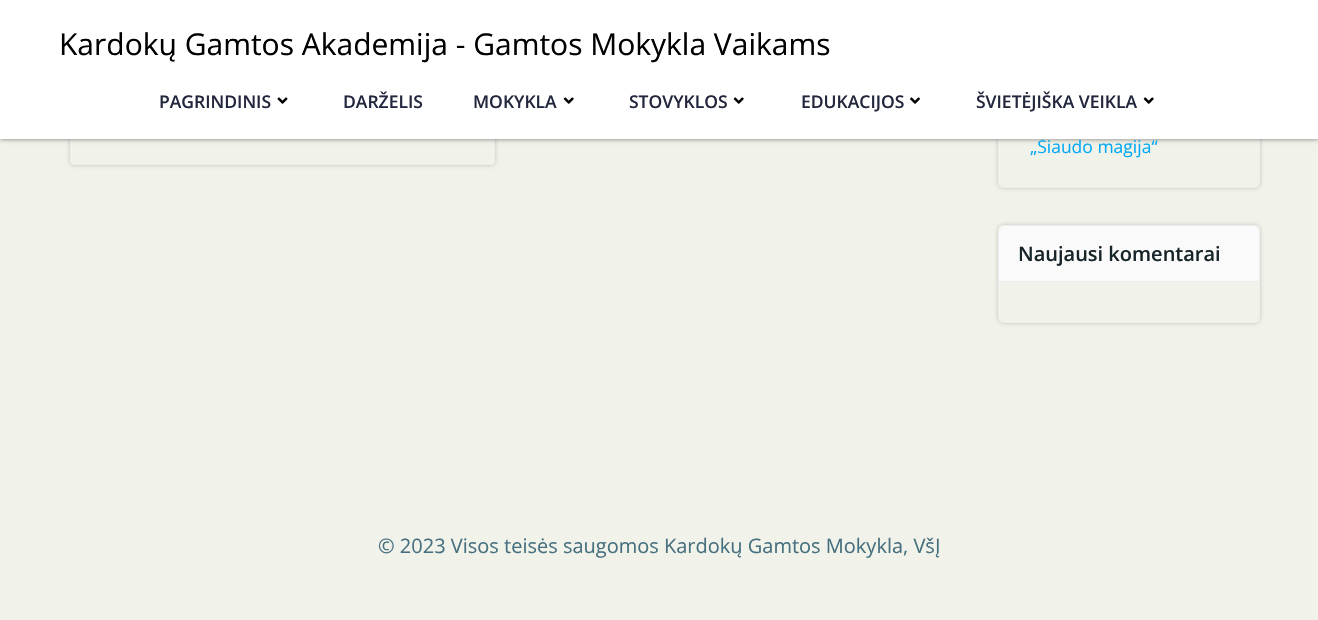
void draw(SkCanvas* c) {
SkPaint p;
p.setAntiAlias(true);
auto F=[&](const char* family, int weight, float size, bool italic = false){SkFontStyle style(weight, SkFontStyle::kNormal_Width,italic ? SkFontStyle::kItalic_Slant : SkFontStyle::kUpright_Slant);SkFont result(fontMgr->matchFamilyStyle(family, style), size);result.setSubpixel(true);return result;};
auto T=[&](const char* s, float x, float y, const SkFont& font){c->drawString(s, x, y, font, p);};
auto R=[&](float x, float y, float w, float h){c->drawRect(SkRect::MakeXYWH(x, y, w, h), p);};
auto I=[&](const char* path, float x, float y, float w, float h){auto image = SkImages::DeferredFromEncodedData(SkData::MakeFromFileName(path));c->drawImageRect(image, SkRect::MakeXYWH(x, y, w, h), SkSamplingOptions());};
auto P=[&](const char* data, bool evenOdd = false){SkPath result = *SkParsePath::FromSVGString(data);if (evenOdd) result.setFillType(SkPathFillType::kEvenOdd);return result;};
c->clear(0xfff1f2e9);
c->save();
c->clipPath(P("M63 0h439v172h-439zm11-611h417c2 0 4 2 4 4v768c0 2-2 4-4 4h-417c-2 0-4-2-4-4v-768c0-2 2-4 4-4z",true),true);
p.setColor(0x33000000);
p.setMaskFilter(SkMaskFilter::MakeBlur(kNormal_SkBlurStyle, 2));
c->drawRoundRect(SkRect::MakeXYWH(70,-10,425,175),4,4,p);
p.setMaskFilter(nullptr);
c->restore();
p.setStroke(true);
p.setStrokeWidth(1);
p.setColor(0xffeeeeee);
c->drawRoundRect(SkRect::MakeXYWH(70.5,-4.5,424,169),3.5,3.5,p);
c->save();
c->clipPath(P("M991 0h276v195h-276zm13-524h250c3.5 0 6 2.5 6 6v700c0 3.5-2.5 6-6 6h-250c-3.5 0-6-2.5-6-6v-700c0-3.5 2.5-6 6-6z",true),true);
p.setStroke(false);
p.setColor(0x33000000);
p.setMaskFilter(SkMaskFilter::MakeBlur(kNormal_SkBlurStyle, 2));
c->drawRoundRect(SkRect::MakeXYWH(998,-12,262,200),6,6,p);
p.setMaskFilter(nullptr);
c->restore();
p.setStroke(true);
p.setColor(0xffeeeeee);
c->drawRoundRect(SkRect::MakeXYWH(998.5,-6.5,261,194),5.5,5.5,p);
p.setStroke(false);
p.setColor(0x80000000);
p.setMaskFilter(SkMaskFilter::MakeBlur(kNormal_SkBlurStyle, 2.5));
c->drawRect(SkRect::MakeXYWH(0,0,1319,139),p);
p.setMaskFilter(nullptr);
auto f1 = F("Open Sans",400,17.5);
p.setColor(0xff03a9f4);
T("„Šiaudo magija“",1030,153,f1);
p.setColor(0xffffffff);
R(0,0,1318,139);
auto f2 = F("Open Sans",400,30);
p.setColor(0xff000000);
T("Kardokų Gamtos Akademija - Gamtos Mokykla Vaikams",59,55,f2);
auto f3 = F("Open Sans",600,17.5);
p.setColor(0xff22273d);
T("PAGRINDINIS",159,108,f3);
I("1.png",277,97,11,7);
T("DARŽELIS",343,108,f3);
T("MOKYKLA",473,108,f3);
I("2.png",563,97,11,7);
T("STOVYKLOS",629,108,f3);
I("2.png",733,97,11,7);
T("EDUKACIJOS",801,108,f3);
I("3.png",910,97,10,7);
T("ŠVIETĖJIŠKA VEIKLA",976,108,f3);
I("2.png",1143,97,11,7);
c->save();
c->clipPath(P("M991 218h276v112h-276zm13 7h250c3.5 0 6 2.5 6 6v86c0 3.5-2.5 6-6 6h-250c-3.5 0-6-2.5-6-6v-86c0-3.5 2.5-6 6-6z",true),true);
p.setColor(0x33000000);
p.setMaskFilter(SkMaskFilter::MakeBlur(kNormal_SkBlurStyle, 2));
c->drawRoundRect(SkRect::MakeXYWH(998,225,262,98),6,6,p);
p.setMaskFilter(nullptr);
c->restore();
p.setStroke(true);
p.setColor(0xffeeeeee);
c->drawRoundRect(SkRect::MakeXYWH(998.5,225.5,261,97),5.5,5.5,p);
p.setStroke(false);
p.setColor(0xfffafafa);
c->drawPath(P("M1004 226h250c3 0 5 2 5 5v50h-260v-50c0-3 2-5 5-5z"),p);
p.setColor(0xffeeeeee);
R(999,281,260,1);
auto f4 = F("Open Sans",600,20);
p.setColor(0xff17252a);
T("Naujausi komentarai",1018,261,f4);
auto f5 = F("Open Sans",400,20);
p.setColor(0xff46707f);
T("© 2023 Visos teisės saugomos Kardokų Gamtos Mokykla, VšĮ",378,553,f5);
}
